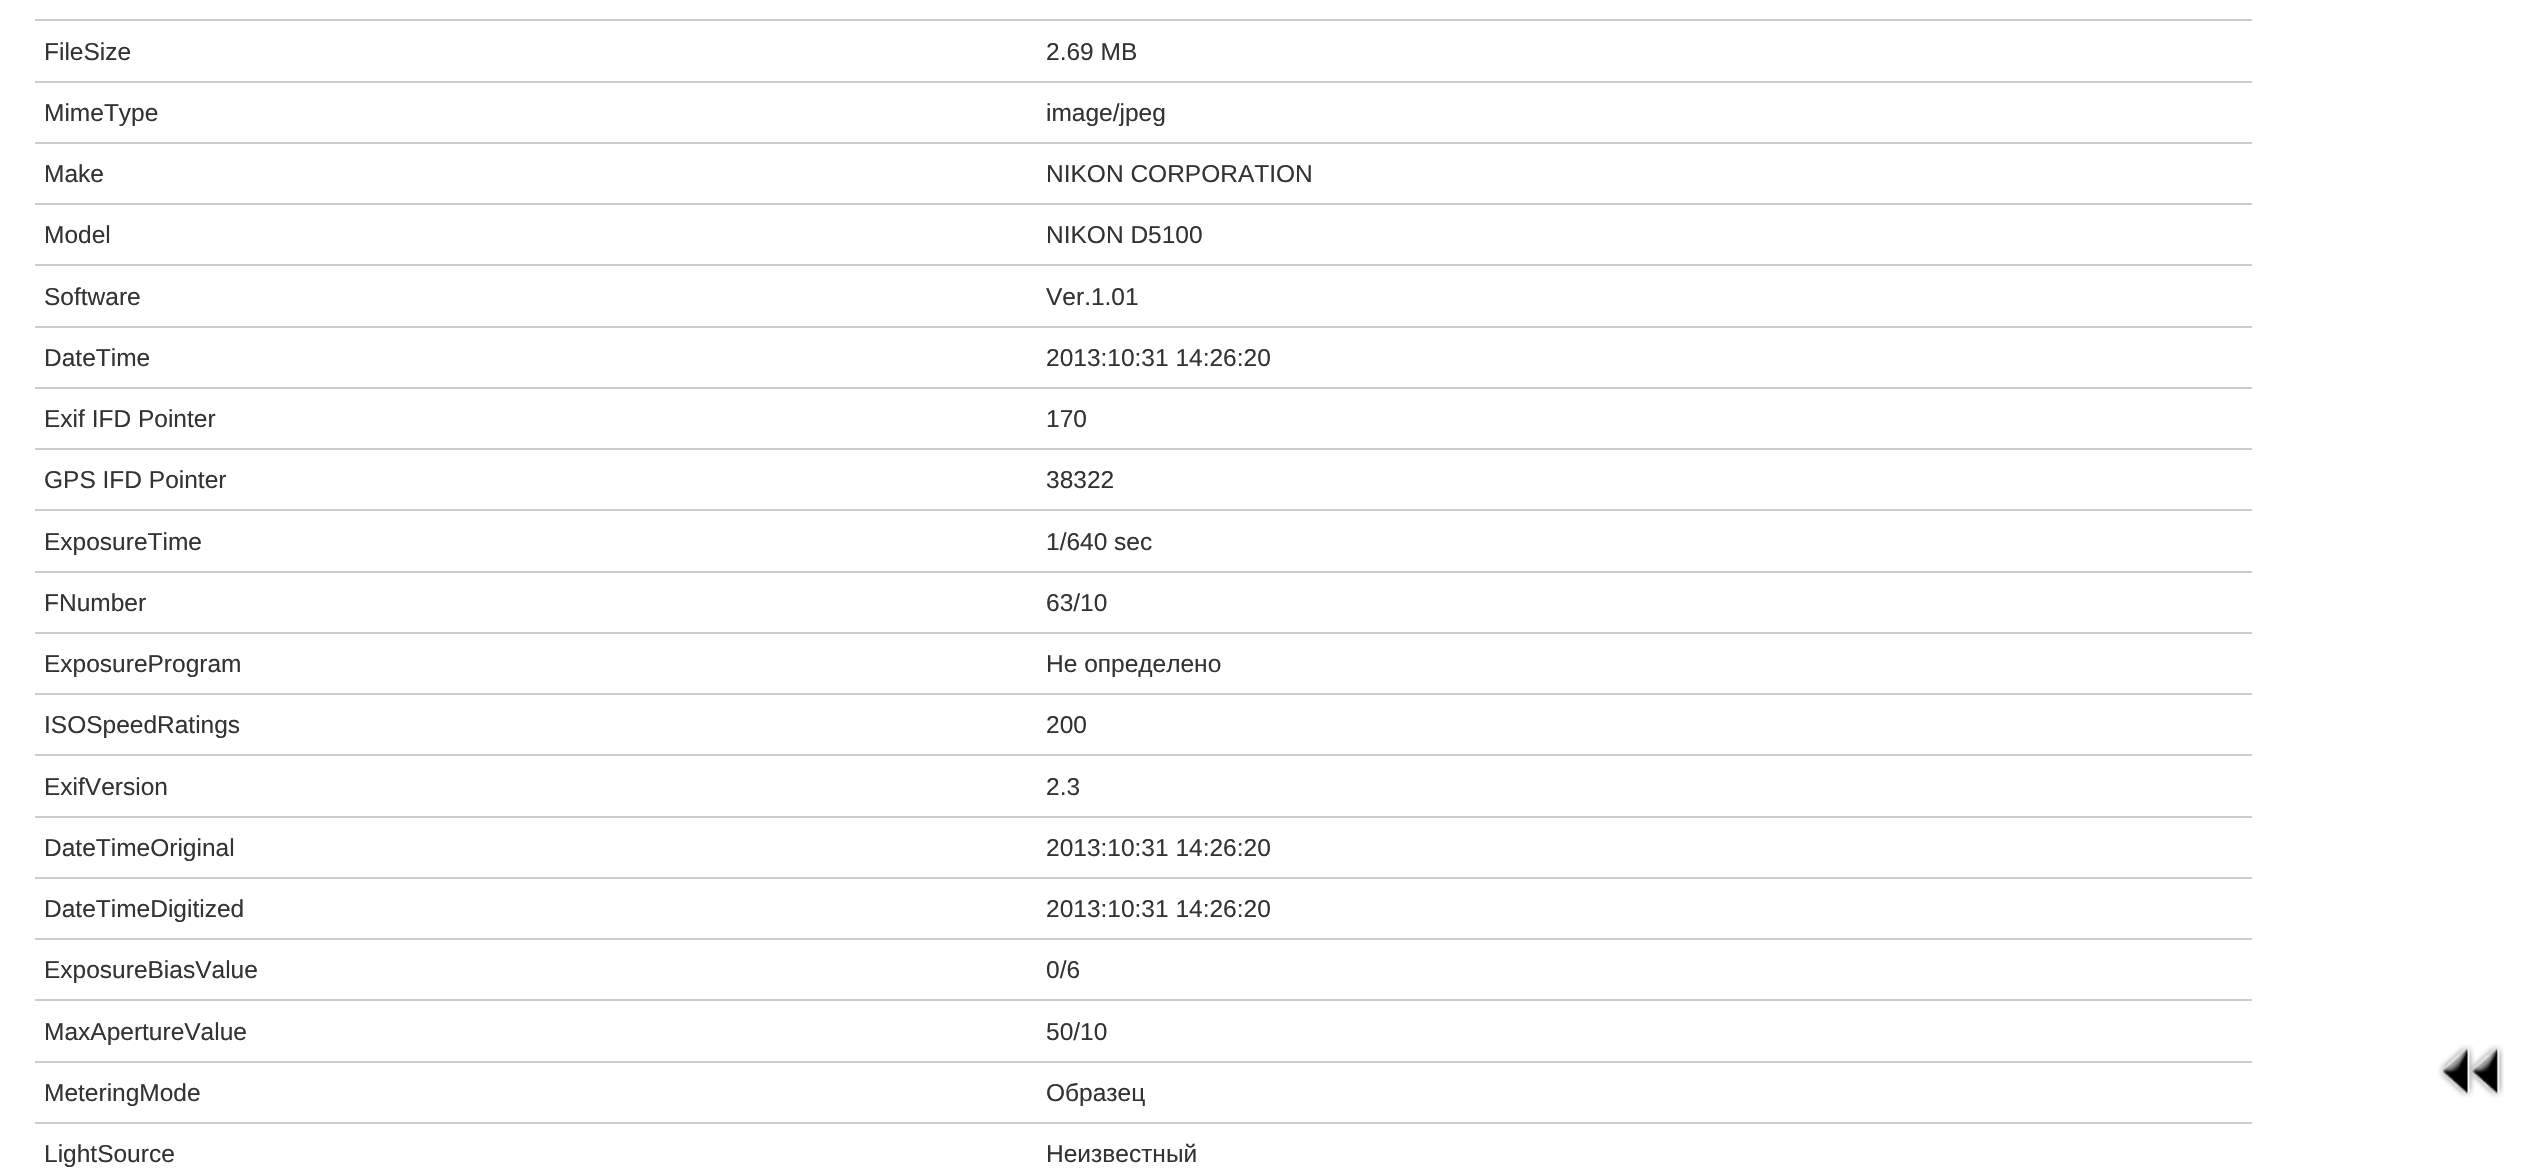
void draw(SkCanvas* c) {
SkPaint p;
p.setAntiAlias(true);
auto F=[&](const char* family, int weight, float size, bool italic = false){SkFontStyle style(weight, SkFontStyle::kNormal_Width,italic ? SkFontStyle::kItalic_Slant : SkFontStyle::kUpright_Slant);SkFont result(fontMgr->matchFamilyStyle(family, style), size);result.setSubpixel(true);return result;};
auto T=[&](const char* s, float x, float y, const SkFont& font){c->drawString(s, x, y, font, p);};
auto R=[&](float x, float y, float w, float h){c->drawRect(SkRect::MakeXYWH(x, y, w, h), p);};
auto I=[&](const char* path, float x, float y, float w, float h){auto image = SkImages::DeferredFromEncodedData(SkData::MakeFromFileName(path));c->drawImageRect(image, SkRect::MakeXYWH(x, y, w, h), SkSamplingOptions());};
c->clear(0xffffffff);
p.setColor(0xffcccccc);
R(35,19,2217,2);
R(35,81,2217,2);
auto f1 = F("Liberation Sans",400,24.5);
p.setColor(0xff333333);
T("FileSize",44,60,f1);
T("2.69 MB",1046,60,f1);
p.setColor(0xffcccccc);
R(35,142,2217,2);
p.setColor(0xff333333);
T("MimeType",44,121,f1);
T("image/jpeg",1046,121,f1);
p.setColor(0xffcccccc);
R(35,203,2217,2);
p.setColor(0xff333333);
T("Make",44,182,f1);
T("NIKON CORPORATION",1046,182,f1);
p.setColor(0xffcccccc);
R(35,264,2217,2);
p.setColor(0xff333333);
T("Model",44,243,f1);
T("NIKON D5100",1046,243,f1);
p.setColor(0xffcccccc);
R(35,326,2217,2);
p.setColor(0xff333333);
T("Software",44,305,f1);
T("Ver.1.01",1046,305,f1);
p.setColor(0xffcccccc);
R(35,387,2217,2);
p.setColor(0xff333333);
T("DateTime",44,366,f1);
T("2013:10:31 14:26:20",1046,366,f1);
p.setColor(0xffcccccc);
R(35,448,2217,2);
p.setColor(0xff333333);
T("Exif IFD Pointer",44,427,f1);
T("170",1046,427,f1);
p.setColor(0xffcccccc);
R(35,509,2217,2);
p.setColor(0xff333333);
T("GPS IFD Pointer",44,488,f1);
T("38322",1046,488,f1);
p.setColor(0xffcccccc);
R(35,571,2217,2);
p.setColor(0xff333333);
T("ExposureTime",44,550,f1);
T("1/640 sec",1046,550,f1);
p.setColor(0xffcccccc);
R(35,632,2217,2);
p.setColor(0xff333333);
T("FNumber",44,611,f1);
T("63/10",1046,611,f1);
p.setColor(0xffcccccc);
R(35,693,2217,2);
p.setColor(0xff333333);
T("ExposureProgram",44,672,f1);
T("Не определено",1046,672,f1);
p.setColor(0xffcccccc);
R(35,754,2217,2);
p.setColor(0xff333333);
T("ISOSpeedRatings",44,733,f1);
T("200",1046,733,f1);
p.setColor(0xffcccccc);
R(35,816,2217,2);
p.setColor(0xff333333);
T("ExifVersion",44,795,f1);
T("2.3",1046,795,f1);
p.setColor(0xffcccccc);
R(35,877,2217,2);
p.setColor(0xff333333);
T("DateTimeOriginal",44,856,f1);
T("2013:10:31 14:26:20",1046,856,f1);
p.setColor(0xffcccccc);
R(35,938,2217,2);
p.setColor(0xff333333);
T("DateTimeDigitized",44,917,f1);
T("2013:10:31 14:26:20",1046,917,f1);
p.setColor(0xffcccccc);
R(35,999,2217,2);
p.setColor(0xff333333);
T("ExposureBiasValue",44,978,f1);
T("0/6",1046,978,f1);
p.setColor(0xffcccccc);
R(35,1061,2217,2);
p.setColor(0xff333333);
T("MaxApertureValue",44,1040,f1);
T("50/10",1046,1040,f1);
p.setColor(0xffcccccc);
R(35,1122,2217,2);
p.setColor(0xff333333);
T("MeteringMode",44,1101,f1);
T("Образец",1046,1101,f1);
T("LightSource",44,1162,f1);
T("Неизвестный",1046,1162,f1);
I("1.png",2437,1044,67,54);
}
